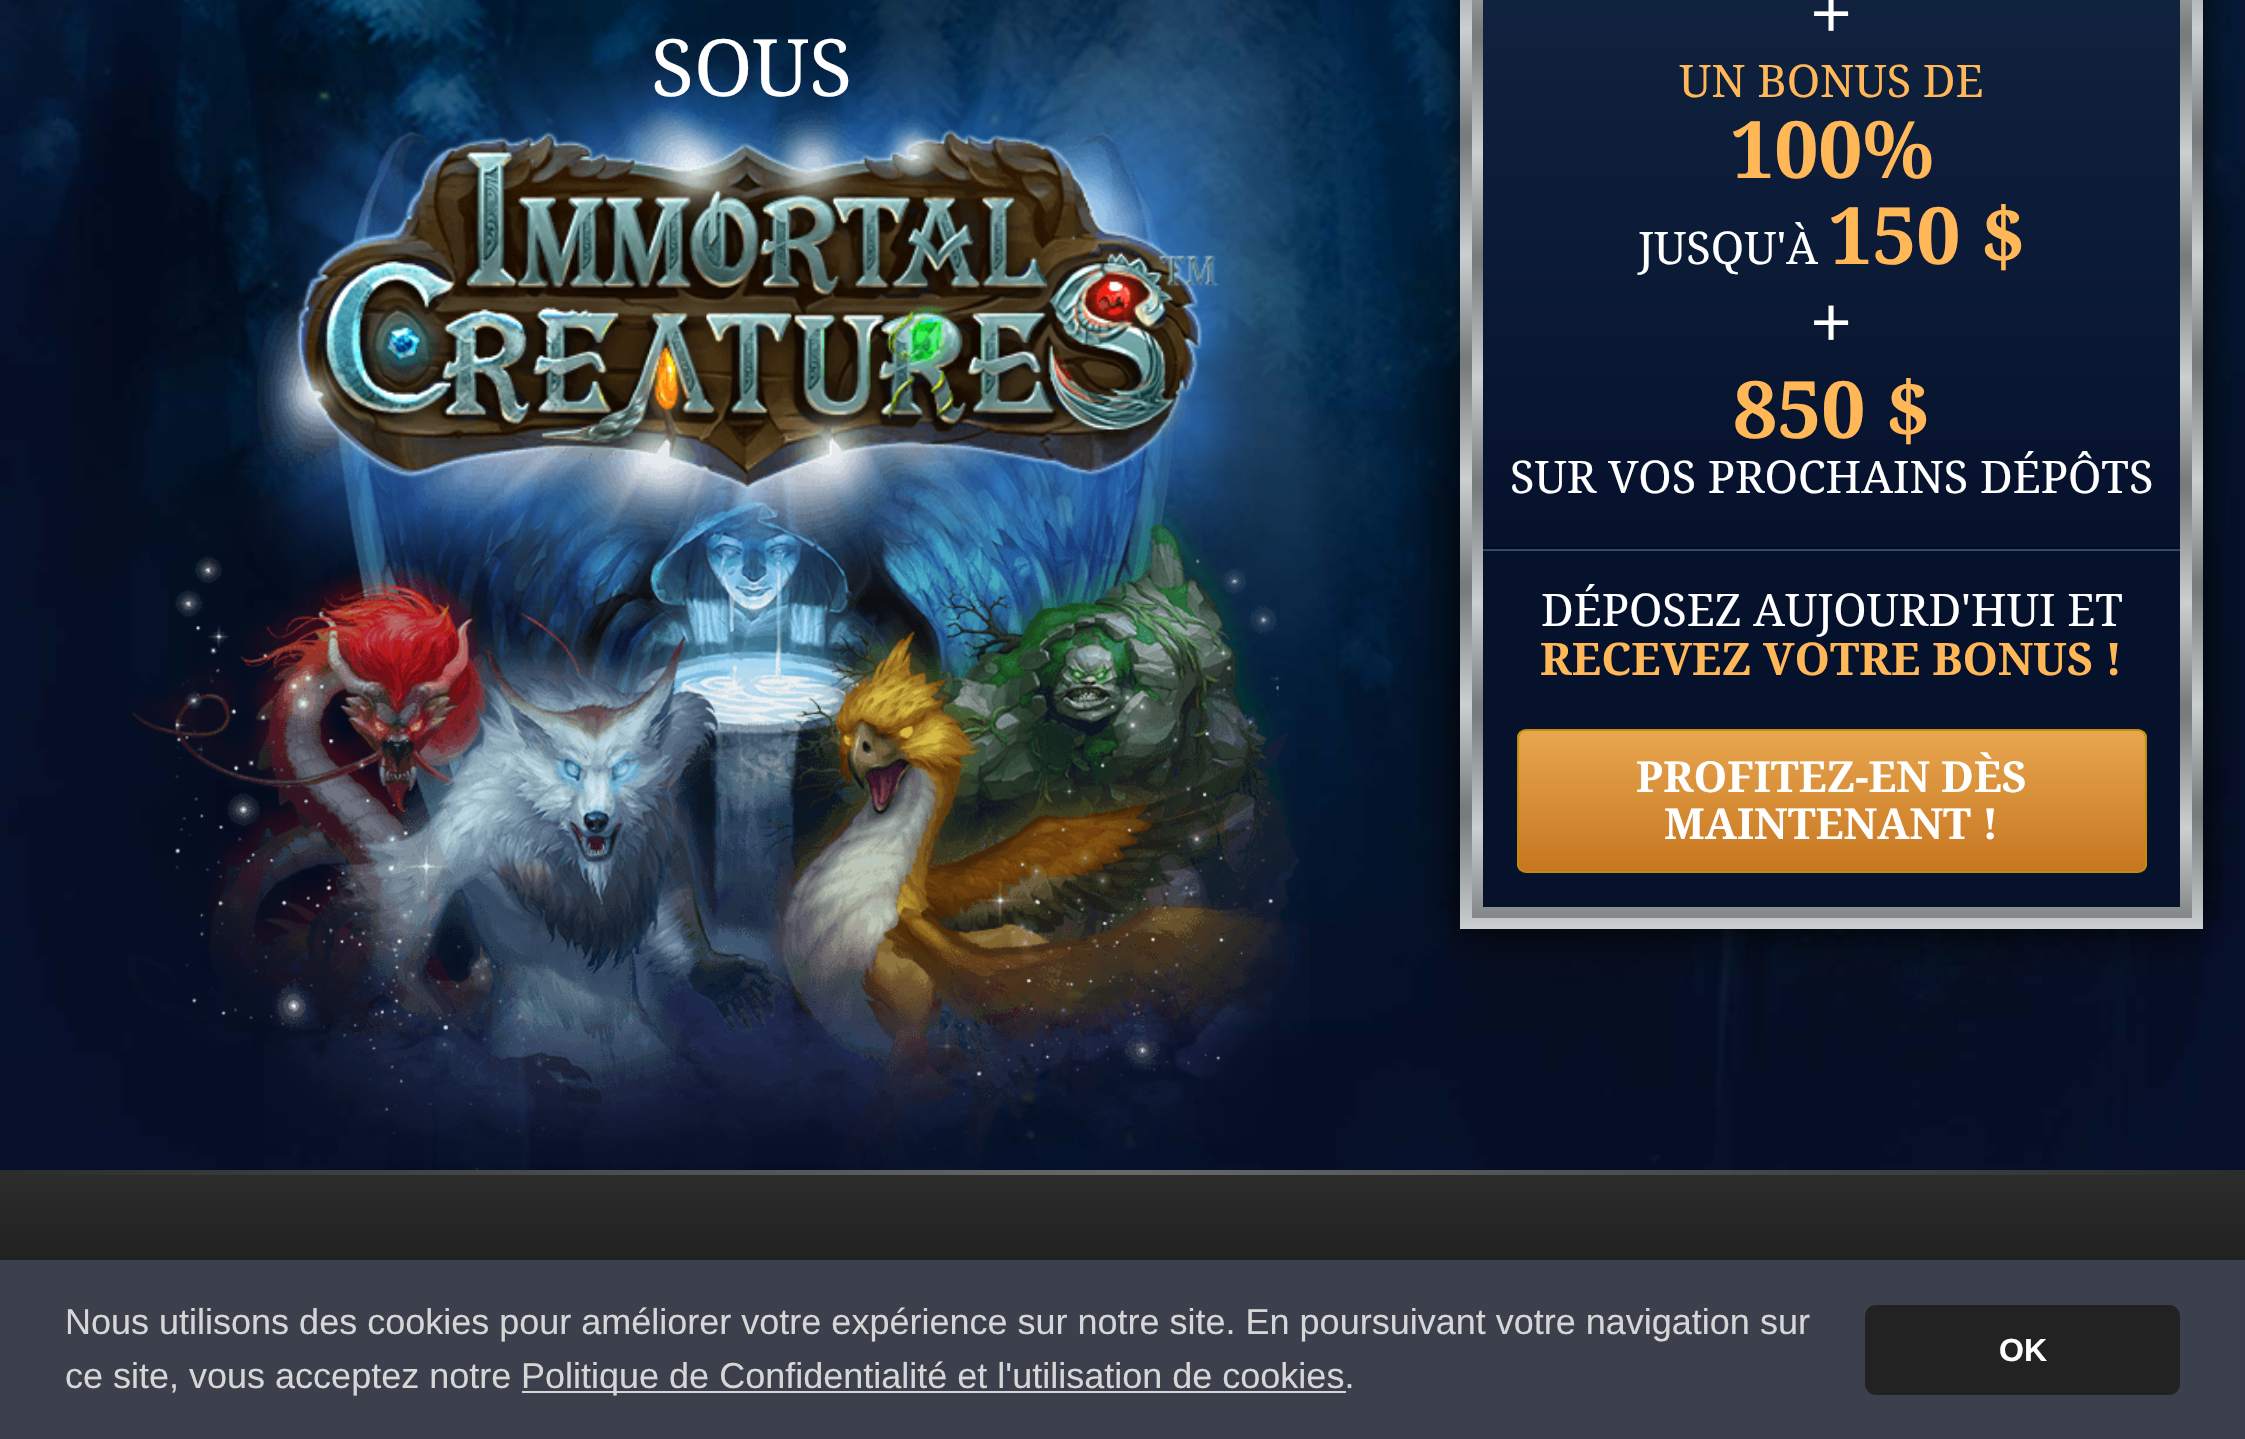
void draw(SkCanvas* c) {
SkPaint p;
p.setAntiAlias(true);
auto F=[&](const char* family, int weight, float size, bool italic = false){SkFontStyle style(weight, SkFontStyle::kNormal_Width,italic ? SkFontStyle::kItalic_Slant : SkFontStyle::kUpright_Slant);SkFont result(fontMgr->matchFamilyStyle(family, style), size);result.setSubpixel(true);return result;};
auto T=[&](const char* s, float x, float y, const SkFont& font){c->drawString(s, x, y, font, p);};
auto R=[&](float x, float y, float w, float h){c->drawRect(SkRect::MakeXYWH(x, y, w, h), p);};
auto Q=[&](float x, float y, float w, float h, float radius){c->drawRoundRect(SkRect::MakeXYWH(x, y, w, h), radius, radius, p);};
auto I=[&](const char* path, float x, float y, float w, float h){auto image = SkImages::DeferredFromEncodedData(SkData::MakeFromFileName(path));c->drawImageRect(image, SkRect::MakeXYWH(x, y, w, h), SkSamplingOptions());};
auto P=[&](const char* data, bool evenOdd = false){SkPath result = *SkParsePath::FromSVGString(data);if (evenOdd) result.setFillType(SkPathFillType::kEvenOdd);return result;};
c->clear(0xffffffff);
I("1.png",0,0,2245,1170);
I("3.png",127,131,1183,1039);
I("2.png",245,33,1009,564);
auto f1 = F("Noto Serif",400,79);
p.setColor(0xffffffff);
T("SOUS",651,96,f1);
p.setColor(0xff000000);
p.setMaskFilter(SkMaskFilter::MakeBlur(kNormal_SkBlurStyle, 22.5));
c->drawRect(SkRect::MakeXYWH(1460,-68,743,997),p);
p.setMaskFilter(nullptr);
{
const SkColor colors[] = {0xff797c7d,0xffcccfcf,0xff797c7d,0xff797c7d};
const float stops[] = {0,.5,.95,1};
const SkPoint ends[] = {{1832,-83}, {1832,142}};
p.setShader(SkGradientShader::MakeLinear(ends, colors, stops, 4, SkTileMode::kClamp));
p.setAlpha(255);
}
R(1460,0,743,142);
{
const SkColor colors[] = {0xff797c7d,0xffcccfcf,0xff797c7d,0xff797c7d};
const float stops[] = {0,.5,.95,1};
const SkPoint ends[] = {{1832,142}, {1832,367}};
p.setShader(SkGradientShader::MakeLinear(ends, colors, stops, 4, SkTileMode::kClamp));
p.setAlpha(255);
}
R(1460,142,743,225);
{
const SkColor colors[] = {0xff797c7d,0xffcccfcf,0xff797c7d,0xff797c7d};
const float stops[] = {0,.5,.95,1};
const SkPoint ends[] = {{1832,367}, {1832,592}};
p.setShader(SkGradientShader::MakeLinear(ends, colors, stops, 4, SkTileMode::kClamp));
p.setAlpha(255);
}
R(1460,367,743,225);
{
const SkColor colors[] = {0xff797c7d,0xffcccfcf,0xff797c7d,0xff797c7d};
const float stops[] = {0,.5,.95,1};
const SkPoint ends[] = {{1832,592}, {1832,817}};
p.setShader(SkGradientShader::MakeLinear(ends, colors, stops, 4, SkTileMode::kClamp));
p.setAlpha(255);
}
R(1460,592,743,225);
{
const SkColor colors[] = {0xff797c7d,0xffcccfcf,0xff797c7d,0xff797c7d};
const float stops[] = {0,.5,.95,1};
const SkPoint ends[] = {{1832,817}, {1832,1042}};
p.setShader(SkGradientShader::MakeLinear(ends, colors, stops, 4, SkTileMode::kClamp));
p.setAlpha(255);
}
R(1460,817,743,112);
{
const SkColor colors[] = {0xff797c7d,0xffcccfcf,0xff797c7d,0xff797c7d};
const float stops[] = {0,.5,.95,1};
const SkPoint ends[] = {{1832,-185}, {1832,41}};
p.setShader(SkGradientShader::MakeLinear(ends, colors, stops, 4, SkTileMode::kClamp));
p.setAlpha(255);
}
R(1472,0,720,41);
{
const SkColor colors[] = {0xff797c7d,0xffcccfcf,0xff797c7d,0xff797c7d};
const float stops[] = {0,.5,.95,1};
const SkPoint ends[] = {{1832,40}, {1832,266}};
p.setShader(SkGradientShader::MakeLinear(ends, colors, stops, 4, SkTileMode::kClamp));
p.setAlpha(255);
}
R(1472,41,720,225);
{
const SkColor colors[] = {0xff797c7d,0xffcccfcf,0xff797c7d,0xff797c7d};
const float stops[] = {0,.5,.95,1};
const SkPoint ends[] = {{1832,265}, {1832,491}};
p.setShader(SkGradientShader::MakeLinear(ends, colors, stops, 4, SkTileMode::kClamp));
p.setAlpha(255);
}
R(1472,266,720,225);
{
const SkColor colors[] = {0xff797c7d,0xffcccfcf,0xff797c7d,0xff797c7d};
const float stops[] = {0,.5,.95,1};
const SkPoint ends[] = {{1832,490}, {1832,716}};
p.setShader(SkGradientShader::MakeLinear(ends, colors, stops, 4, SkTileMode::kClamp));
p.setAlpha(255);
}
R(1472,491,720,225);
{
const SkColor colors[] = {0xff797c7d,0xffcccfcf,0xff797c7d,0xff797c7d};
const float stops[] = {0,.5,.95,1};
const SkPoint ends[] = {{1832,716}, {1832,941}};
p.setShader(SkGradientShader::MakeLinear(ends, colors, stops, 4, SkTileMode::kClamp));
p.setAlpha(255);
}
R(1472,716,720,202);
p.setShader(nullptr);
p.setColor(0xff06112c);
R(1483,551,697,356);
{
const SkColor colors[] = {0xff132845,0xff06112c};
const float stops[] = {0,1};
const SkPoint ends[] = {{1832,-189}, {1832,547}};
p.setShader(SkGradientShader::MakeLinear(ends, colors, stops, 2, SkTileMode::kClamp));
p.setAlpha(255);
}
R(1483,0,697,547);
p.setShader(nullptr);
p.setColor(0xff050c19);
R(1483,547,697,2);
p.setColor(0xffffffff);
T("+",1809,42,f1);
auto f2 = F("Noto Serif",400,45);
p.setColor(0xffffb758);
T("UN BONUS DE",1679,97,f2);
auto f3 = F("Noto Serif",700,79);
T("100%",1730,178,f3);
p.setColor(0xffffffff);
T("JUSQU'À",1638,264,f2);
p.setColor(0xffffb758);
T("150 $",1828,264,f3);
p.setColor(0xffffffff);
T("+",1809,351,f1);
p.setColor(0xffffb758);
T("850 $",1733,438,f3);
p.setColor(0xffffffff);
T("SUR VOS PROCHAINS DÉPÔTS",1510,493,f2);
p.setColor(0xff2f496d);
R(1483,549,697,2);
p.setColor(0xffffffff);
T("DÉPOSEZ AUJOURD'HUI ET",1541,626,f2);
auto f4 = F("Noto Serif",700,45);
p.setColor(0xffffb758);
T("RECEVEZ VOTRE BONUS !",1540,675,f4);
c->save();
c->clipPath(P("M1526 729h612c5 0 9 4 9 9v126c0 5-4 9-9 9h-612c-5 0-9-4-9-9v-126c0-5 4-9 9-9z"),true);
{
const SkColor colors[] = {0xffe8a64f,0xffc6761f};
const float stops[] = {0,1};
const SkPoint ends[] = {{1832,731}, {1832,871}};
p.setShader(SkGradientShader::MakeLinear(ends, colors, stops, 2, SkTileMode::kClamp));
p.setAlpha(255);
}
R(1517,731,630,140);
c->restore();
p.setStroke(true);
p.setStrokeWidth(2);
p.setShader(nullptr);
p.setColor(0xffbe8d0b);
c->drawRoundRect(SkRect::MakeXYWH(1518,730,628,142),8,8,p);
auto f5 = F("Noto Serif",700,42.75);
p.setStroke(false);
p.setColor(0xffffffff);
T("PROFITEZ-EN DÈS",1636,792,f5);
T("MAINTENANT !",1664,839,f5);
{
const SkColor colors[] = {0xff2c2c2c,0xff000000};
const float stops[] = {0,1};
const SkPoint ends[] = {{1123,1175}, {1123,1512}};
p.setShader(SkGradientShader::MakeLinear(ends, colors, stops, 2, SkTileMode::kClamp));
p.setAlpha(255);
}
R(0,1175,2245,85);
{
const SkColor colors[] = {0xff2c2c2c,0xff686868,0xff2c2c2c};
const float stops[] = {0,.5,1};
const SkPoint ends[] = {{0,1172}, {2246,1172}};
p.setShader(SkGradientShader::MakeLinear(ends, colors, stops, 3, SkTileMode::kClamp));
p.setAlpha(255);
}
R(0,1170,2245,5);
p.setShader(nullptr);
p.setColor(0xff3c404d);
R(0,1260,2245,179);
auto f6 = F("Liberation Sans",400,36);
p.setColor(0xffd6d6d6);
T("Nous utilisons des cookies pour améliorer votre expérience sur notre site. En poursuivant votre navigation sur",65,1334,f6);
T("ce site, vous acceptez notre",65,1388,f6);
R(522,1391,824,2);
T("Politique de Confidentialité et l'utilisation de cookies.",521,1388,f6);
p.setColor(0xff222222);
Q(1865,1305,315,90,11);
auto f7 = F("Liberation Sans",700,32);
p.setColor(0xffffffff);
T("OK",1999,1361,f7);
}
